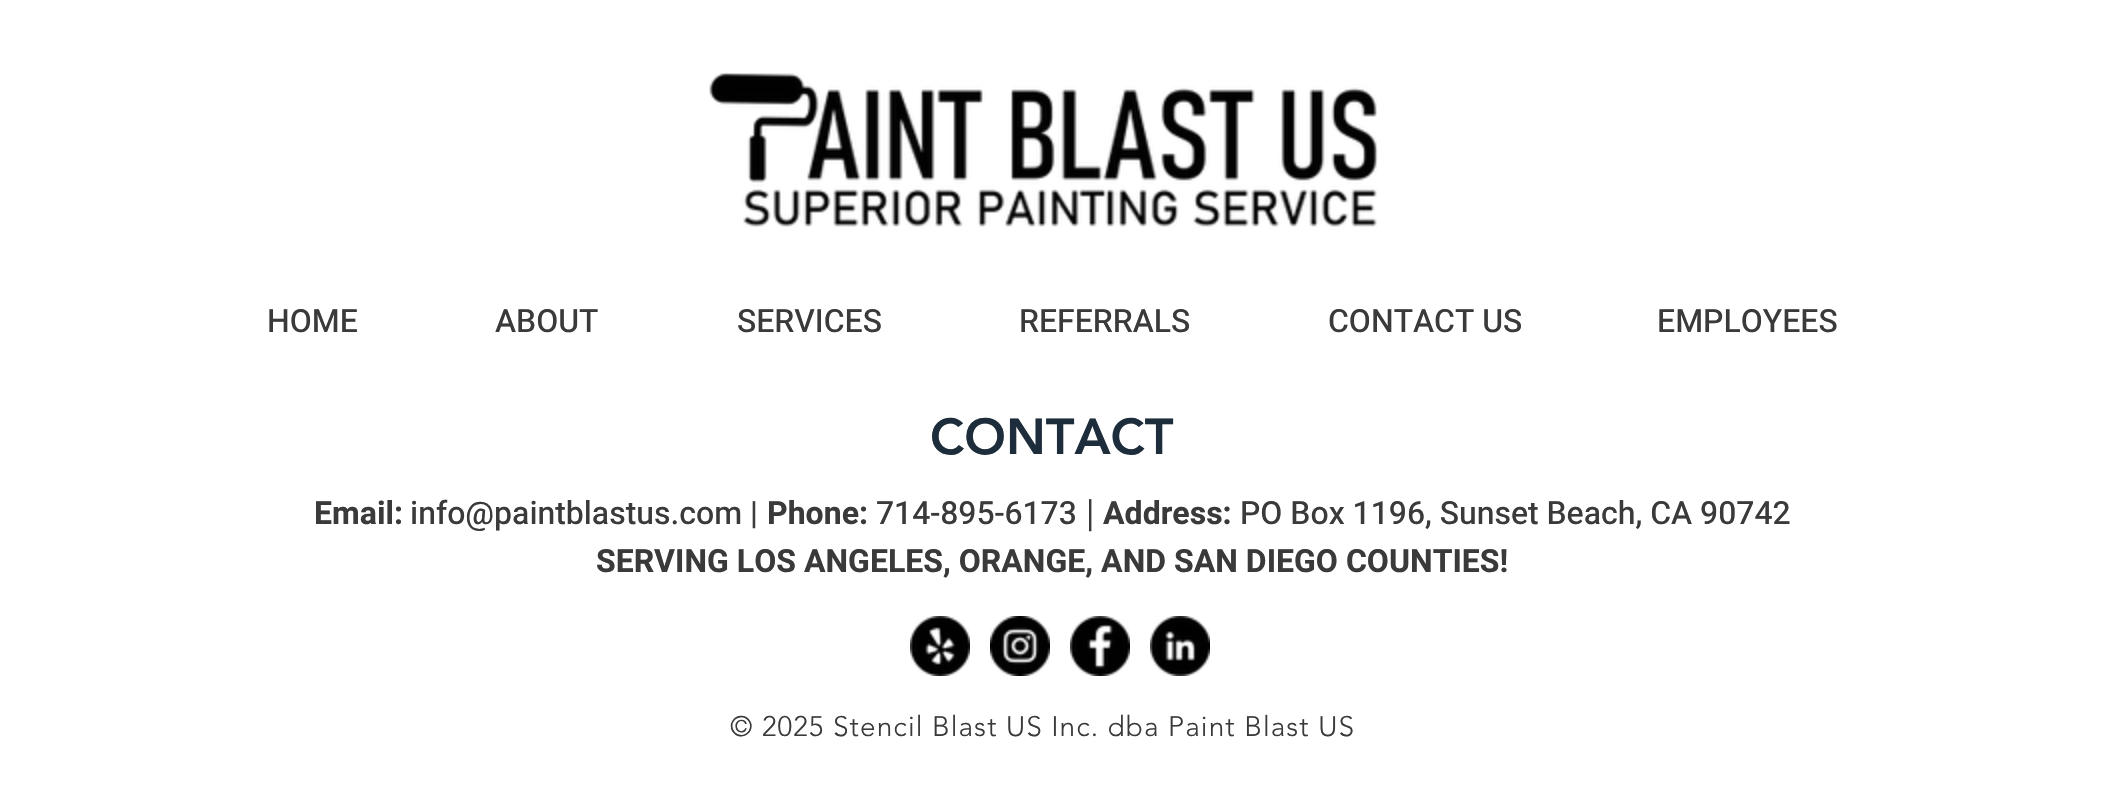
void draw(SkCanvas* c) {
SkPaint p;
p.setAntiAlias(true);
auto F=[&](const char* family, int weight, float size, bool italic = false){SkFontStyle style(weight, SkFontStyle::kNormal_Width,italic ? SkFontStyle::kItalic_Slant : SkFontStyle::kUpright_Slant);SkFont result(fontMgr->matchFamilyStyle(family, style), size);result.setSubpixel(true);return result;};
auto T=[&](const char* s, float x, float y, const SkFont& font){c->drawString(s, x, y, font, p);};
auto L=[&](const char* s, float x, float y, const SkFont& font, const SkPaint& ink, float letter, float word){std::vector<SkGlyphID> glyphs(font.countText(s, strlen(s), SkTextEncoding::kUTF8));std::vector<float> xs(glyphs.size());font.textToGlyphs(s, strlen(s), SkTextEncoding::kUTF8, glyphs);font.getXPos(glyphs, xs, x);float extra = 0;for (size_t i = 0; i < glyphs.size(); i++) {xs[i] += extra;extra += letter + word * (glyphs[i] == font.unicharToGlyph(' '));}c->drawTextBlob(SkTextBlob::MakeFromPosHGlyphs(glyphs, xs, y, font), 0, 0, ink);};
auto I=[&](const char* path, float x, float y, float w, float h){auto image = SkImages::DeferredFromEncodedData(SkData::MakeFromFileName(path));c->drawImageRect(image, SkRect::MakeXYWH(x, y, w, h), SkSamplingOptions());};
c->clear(0xffffffff);
I("1.png",709,72,669,155);
auto f1 = F("Heebo",500,32);
p.setColor(0xff3b3a3a);
T("HOME",267,332,f1);
T("ABOUT",495,332,f1);
T("SERVICES",737,332,f1);
T("REFERRALS",1019,332,f1);
T("CONTACT US",1328,332,f1);
T("EMPLOYEES",1657,332,f1);
auto f2 = F("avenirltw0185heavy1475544",900,50);
p.setColor(0xff1e2d3b);
T("CONTACT",930,454,f2);
auto f3 = F("Heebo",700,32);
p.setColor(0xff3b3a3a);
T("Email:",314,524,f3);
T("info@paintblastus.com |",410,524,f1);
T("Phone:",767,524,f3);
T("714-895-6173",876,524,f1);
auto f4 = F("helvetica",400,32);
T("|",1086,524,f4);
T("Address:",1103,524,f3);
T("PO Box 1196, Sunset Beach, CA 90742",1240,524,f1);
T("SERVING LOS ANGELES, ORANGE, AND SAN DIEGO COUNTIES!",596,572,f3);
I("2.png",910,616,60,60);
I("3.png",990,616,60,60);
I("4.png",1070,616,60,60);
I("5.png",1150,616,60,60);
auto f5 = F("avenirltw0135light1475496",300,28);
L("© 2025 Stencil Blast US Inc. dba Paint Blast US",730,736,f5,p,1.1,0);
}
